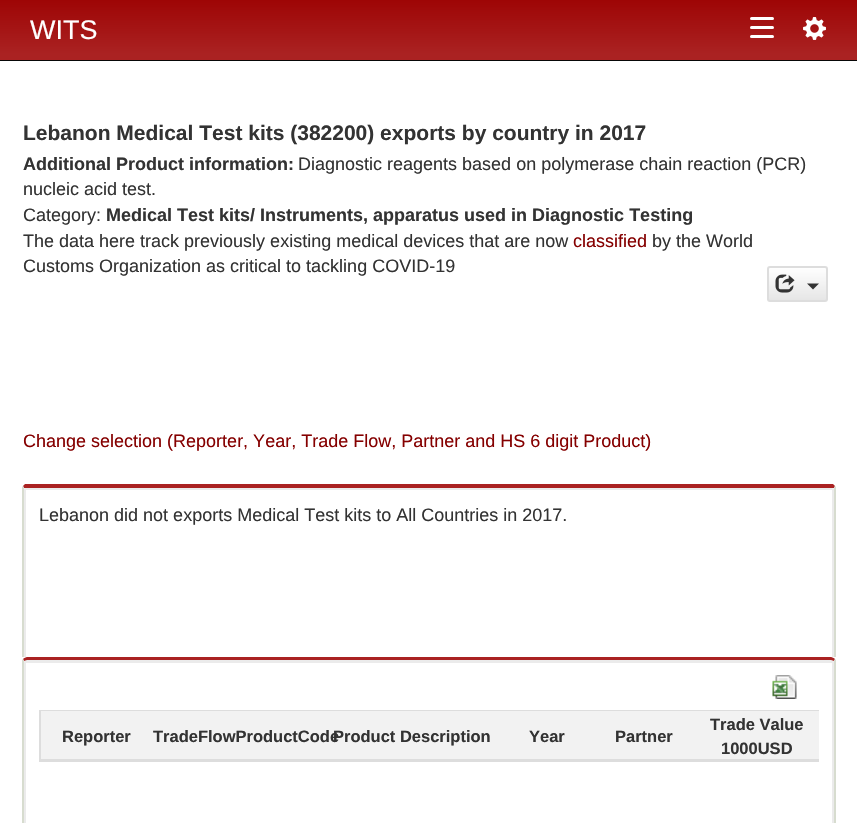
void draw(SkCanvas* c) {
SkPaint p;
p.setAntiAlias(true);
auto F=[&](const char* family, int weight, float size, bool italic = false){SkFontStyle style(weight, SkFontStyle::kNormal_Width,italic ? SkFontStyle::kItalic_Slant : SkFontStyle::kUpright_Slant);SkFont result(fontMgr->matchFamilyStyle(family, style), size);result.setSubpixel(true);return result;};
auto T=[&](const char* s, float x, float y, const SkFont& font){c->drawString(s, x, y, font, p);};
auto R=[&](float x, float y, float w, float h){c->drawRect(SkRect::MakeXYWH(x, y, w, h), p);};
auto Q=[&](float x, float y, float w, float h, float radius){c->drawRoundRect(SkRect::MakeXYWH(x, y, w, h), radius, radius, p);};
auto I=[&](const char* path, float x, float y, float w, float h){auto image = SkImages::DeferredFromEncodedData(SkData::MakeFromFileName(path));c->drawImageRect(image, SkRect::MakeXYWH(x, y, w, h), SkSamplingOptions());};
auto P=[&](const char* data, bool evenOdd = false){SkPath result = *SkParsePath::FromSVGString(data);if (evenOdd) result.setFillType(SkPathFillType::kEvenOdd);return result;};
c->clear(0xffffffff);
p.setColor(0xff080808);
R(0,60,857,1);
{
const SkColor colors[] = {0xff9e0505,0xffaa2222};
const float stops[] = {0,1};
const SkPoint ends[] = {{429,0}, {429,54}};
p.setShader(SkGradientShader::MakeLinear(ends, colors, stops, 2, SkTileMode::kClamp));
p.setAlpha(255);
}
R(0,0,857,54);
p.setShader(nullptr);
p.setColor(0xffaa2222);
R(0,54,857,6);
auto f1 = F("Liberation Sans",400,27);
p.setColor(0xffffffff);
T("WITS",30,39,f1);
Q(750,17,24,3,1.5);
Q(750,26,24,3,1.5);
Q(750,35,24,3,1.5);
I("1.png",803,17,23,23);
auto f2 = F("Liberation Sans",700,21);
p.setColor(0xff333333);
T("Lebanon Medical Test kits (382200) exports by country in 2017",23,140,f2);
auto f3 = F("Liberation Sans",700,18);
T("Additional Product information:",23,170,f3);
auto f4 = F("Liberation Sans",400,18);
T("Diagnostic reagents based on polymerase chain reaction (PCR)",298,170,f4);
T("nucleic acid test.",23,195,f4);
T("Category:",23,221,f4);
T("Medical Test kits/ Instruments, apparatus used in Diagnostic Testing",106,221,f3);
T("The data here track previously existing medical devices that are now",23,247,f4);
p.setColor(0xff850000);
T("classified",573,247,f4);
p.setColor(0xff333333);
T("by the World",652,247,f4);
T("Customs Organization as critical to tackling COVID-19",23,272,f4);
c->save();
c->clipPath(P("M770 266h55c1.5 0 3 1.5 3 3v30c0 1.5-1.5 3-3 3h-55c-1.5 0-3-1.5-3-3v-30c0-1.5 1.5-3 3-3z"),true);
{
const SkColor colors[] = {0xffffffff,0xffe6e6e6};
const float stops[] = {0,1};
const SkPoint ends[] = {{797,267}, {797,300}};
p.setShader(SkGradientShader::MakeLinear(ends, colors, stops, 2, SkTileMode::kClamp));
p.setAlpha(255);
}
R(767,267,61,33);
c->restore();
p.setStroke(true);
p.setStrokeWidth(2);
p.setShader(nullptr);
p.setColor(0xffdddddd);
c->drawRoundRect(SkRect::MakeXYWH(768,267,59,34),2,2,p);
I("2.png",775,274,20,19);
p.setStroke(false);
p.setColor(0xff333333);
c->drawPath(P("M807 283.5h12l-6 6z"),p);
p.setColor(0xff850000);
T("Change selection (Reporter, Year, Trade Flow, Partner and HS 6 digit Product)",23,447,f4);
p.setColor(0xffebebeb);
c->drawPath(P("M27 488c-2 0-3 0-3 1v216c0 2 1 3 3 3c-1 0-1-1-1-2v-216h806v216c0 1 0 2-1 2c2 0 3-1 3-3v-216c0-1-1-1-3-1z"),p);
p.setColor(0xffaa2222);
c->drawPath(P("M27 488h-3l-1-2l2-2h808l2 2l-1 2h-3z"),p);
p.setColor(0xffd7dccf);
c->drawPath(P("M836 707l-2 1l-1-1l1-2v-216v-1l1-2l1 1z"),p);
c->drawPath(P("M22 487l1-1l1 2v1v216l1 2l-1 1l-2-1z"),p);
p.setColor(0xff333333);
T("Lebanon did not exports Medical Test kits to All Countries in 2017.",39,521,f4);
p.setColor(0xffffffff);
R(22,657,814,51);
p.setColor(0xffebebeb);
c->drawPath(P("M27 660c-2 0-3 1-3 2v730c0 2 1 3 3 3l-1-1v-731h806v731l-1 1c2 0 3-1 3-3v-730c0-1-1-2-3-2z"),p);
p.setColor(0xffaa2222);
c->drawPath(P("M27 657c-1 0-3 1-4 2l1 2l3-1h804l3 1l1-2c-1-1-3-2-4-2z"),p);
p.setColor(0xffd7dccf);
c->drawPath(P("M836 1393l-2 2l-1-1l1-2v-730v-1l1-2l1 1z"),p);
c->drawPath(P("M22 660l1-1l1 2v1v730l1 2l-1 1l-2-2z"),p);
I("3.png",772,675,25,24);
c->save();
c->clipRect(SkRect::MakeXYWH(39,710,780,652));
p.setStroke(true);
p.setColor(0xffdddddd);
c->drawRect(SkRect::MakeXYWH(40,711,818,50),p);
c->restore();
p.setStroke(false);
p.setColor(0xfff2f2f2);
R(41,711,778,48);
p.setColor(0xffdddddd);
R(41,759,778,1);
auto f5 = F("Liberation Sans",700,16.5);
p.setColor(0xff333333);
T("Reporter",62,742,f5);
T("TradeFlowProductCode",153,742,f5);
T("Product Description",333,742,f5);
T("Year",529,742,f5);
T("Partner",615,742,f5);
T("Trade Value",710,730,f5);
T("1000USD",721,754,f5);
}
